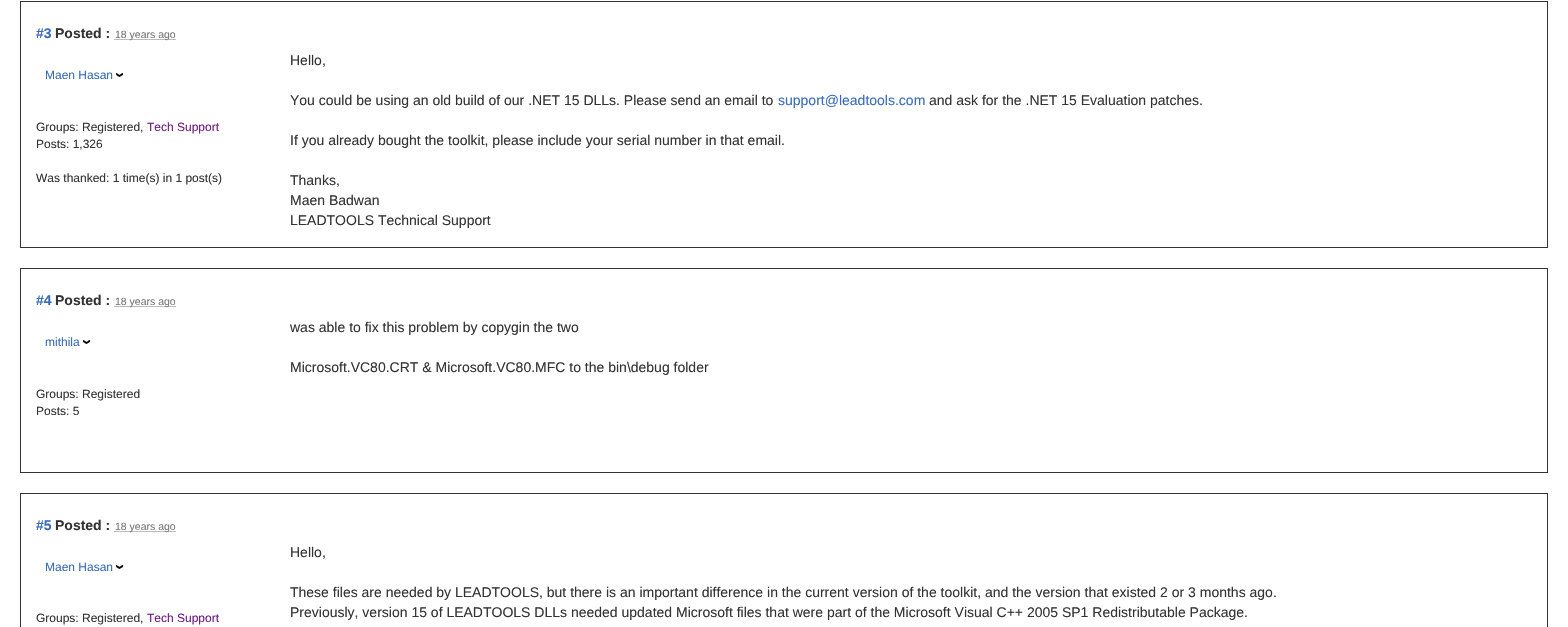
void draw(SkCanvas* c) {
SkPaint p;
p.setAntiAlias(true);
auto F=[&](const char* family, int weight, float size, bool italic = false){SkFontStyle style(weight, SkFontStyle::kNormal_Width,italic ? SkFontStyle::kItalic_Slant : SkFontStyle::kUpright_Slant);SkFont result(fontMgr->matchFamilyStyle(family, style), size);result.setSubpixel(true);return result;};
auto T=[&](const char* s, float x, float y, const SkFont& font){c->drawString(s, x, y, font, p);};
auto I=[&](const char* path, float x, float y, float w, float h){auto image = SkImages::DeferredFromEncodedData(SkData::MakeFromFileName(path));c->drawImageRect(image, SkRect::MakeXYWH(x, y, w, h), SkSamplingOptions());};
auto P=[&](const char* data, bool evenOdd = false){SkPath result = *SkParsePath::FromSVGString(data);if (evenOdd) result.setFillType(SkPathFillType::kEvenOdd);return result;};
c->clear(0xffffffff);
p.setStroke(true);
p.setStrokeWidth(1);
p.setColor(0xff333333);
c->drawRect(SkRect::MakeXYWH(20.5,1.5,1527,246),p);
auto f1 = F("Liberation Sans",700,14);
p.setStroke(false);
p.setColor(0xff386cb8);
T("#3",36,38,f1);
p.setColor(0xff333333);
T("Posted :",55,38,f1);
p.setStroke(true);
p.setColor(0xff777777);
p.setPathEffect(SkDashPathEffect::Make({{1,1}}, 0));
c->drawPath(P("M114.5 39.5h61"),p);
p.setPathEffect(nullptr);
auto f2 = F("Liberation Sans",400,10.5);
p.setStroke(false);
T("18 years ago",115,38,f2);
auto f3 = F("Liberation Sans",400,12);
p.setColor(0xff386cb8);
T("Maen Hasan",45,79,f3);
I("1.png",116,73,8,4);
p.setColor(0xff333333);
T("Groups: Registered,",36,131,f3);
p.setColor(0xff6e1987);
T("Tech Support",147,131,f3);
p.setColor(0xff333333);
T("Posts: 1,326",36,148,f3);
T("Was thanked: 1 time(s) in 1 post(s)",36,182,f3);
auto f4 = F("Liberation Sans",400,14);
T("Hello,",290,65,f4);
T("You could be using an old build of our .NET 15 DLLs. Please send an email to",290,105,f4);
p.setColor(0xff386cb8);
T("support@leadtools.com",778,105,f4);
p.setColor(0xff333333);
T("and ask for the .NET 15 Evaluation patches.",929,105,f4);
T("If you already bought the toolkit, please include your serial number in that email.",290,145,f4);
T("Thanks,",290,185,f4);
T("Maen Badwan",290,205,f4);
T("LEADTOOLS Technical Support",290,225,f4);
p.setStroke(true);
c->drawRect(SkRect::MakeXYWH(20.5,268.5,1527,204),p);
p.setStroke(false);
p.setColor(0xff386cb8);
T("#4",36,305,f1);
p.setColor(0xff333333);
T("Posted :",55,305,f1);
p.setStroke(true);
p.setColor(0xff777777);
p.setPathEffect(SkDashPathEffect::Make({{1,1}}, 0));
c->drawPath(P("M114.5 306.5h61"),p);
p.setPathEffect(nullptr);
p.setStroke(false);
T("18 years ago",115,305,f2);
p.setColor(0xff386cb8);
T("mithila",45,346,f3);
I("1.png",83,340,8,4);
p.setColor(0xff333333);
T("Groups: Registered",36,398,f3);
T("Posts: 5",36,415,f3);
T("was able to fix this problem by copygin the two",290,332,f4);
T("Microsoft.VC80.CRT & Microsoft.VC80.MFC to the bin\\debug folder",290,372,f4);
p.setStroke(true);
c->drawRect(SkRect::MakeXYWH(20.5,493.5,1527,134),p);
p.setStroke(false);
p.setColor(0xff386cb8);
T("#5",36,530,f1);
p.setColor(0xff333333);
T("Posted :",55,530,f1);
p.setStroke(true);
p.setColor(0xff777777);
p.setPathEffect(SkDashPathEffect::Make({{1,1}}, 0));
c->drawPath(P("M114.5 531.5h61"),p);
p.setPathEffect(nullptr);
p.setStroke(false);
T("18 years ago",115,530,f2);
p.setColor(0xff386cb8);
T("Maen Hasan",45,571,f3);
I("1.png",116,565,8,4);
p.setColor(0xff333333);
T("Groups: Registered,",36,622,f3);
p.setColor(0xff6e1987);
T("Tech Support",147,622,f3);
p.setColor(0xff333333);
T("Hello,",290,557,f4);
T("These files are needed by LEADTOOLS, but there is an important difference in the current version of the toolkit, and the version that existed 2 or 3 months ago.",290,597,f4);
T("Previously, version 15 of LEADTOOLS DLLs needed updated Microsoft files that were part of the Microsoft Visual C++ 2005 SP1 Redistributable Package.",290,617,f4);
}
